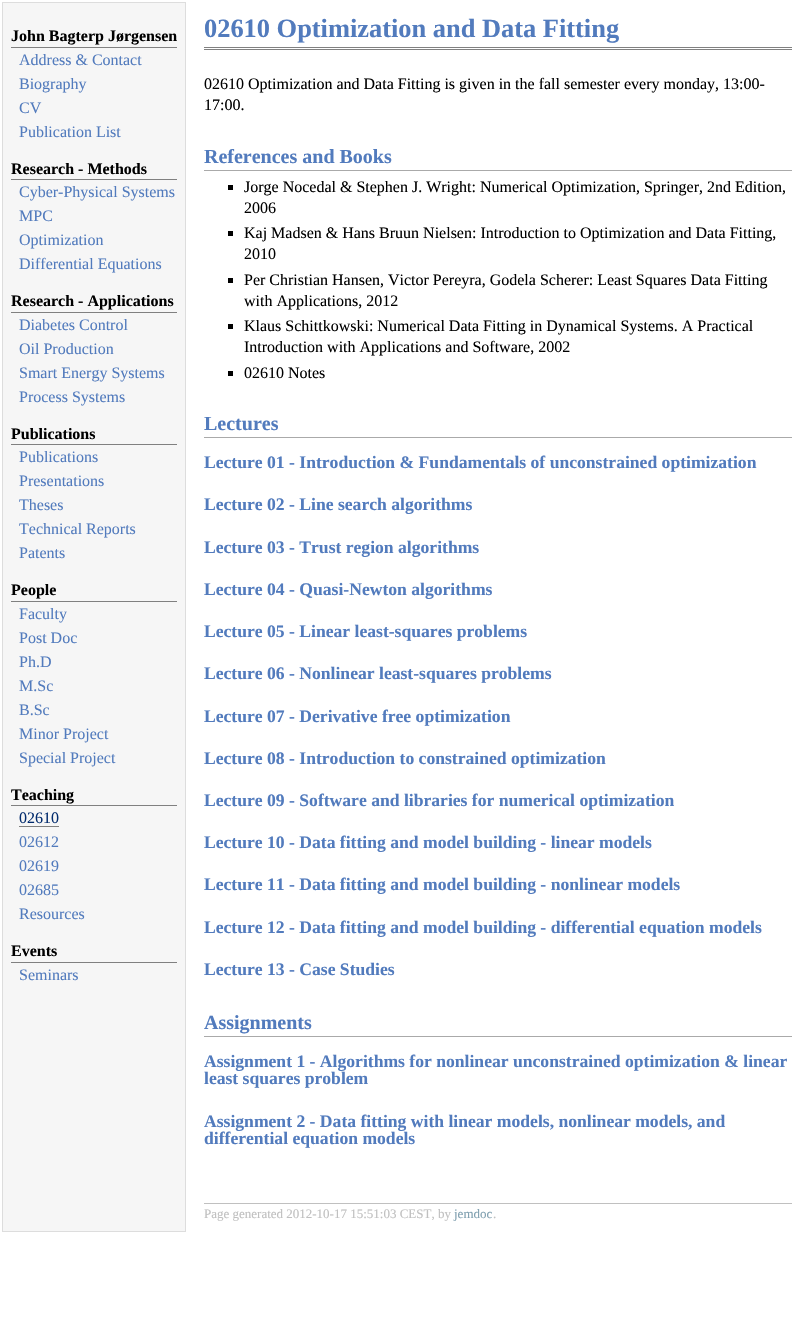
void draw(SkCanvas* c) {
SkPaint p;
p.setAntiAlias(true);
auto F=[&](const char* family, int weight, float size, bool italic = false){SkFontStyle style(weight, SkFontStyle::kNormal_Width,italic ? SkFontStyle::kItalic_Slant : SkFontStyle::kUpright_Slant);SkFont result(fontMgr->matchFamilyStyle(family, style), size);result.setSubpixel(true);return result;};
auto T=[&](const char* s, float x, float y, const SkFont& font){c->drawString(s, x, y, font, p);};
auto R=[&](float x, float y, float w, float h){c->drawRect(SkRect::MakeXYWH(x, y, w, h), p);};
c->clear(0xffffffff);
p.setColor(0xfff6f6f6);
c->drawRect(SkRect::MakeXYWH(2.5,2.5,183,1229),p);
p.setStroke(true);
p.setStrokeWidth(1);
p.setColor(0xffdddddd);
c->drawRect(SkRect::MakeXYWH(2.5,2.5,183,1229),p);
p.setStroke(false);
p.setColor(0xff808080);
R(11,47,166,1);
auto f1 = F("Liberation Serif",700,16);
p.setColor(0xff000000);
T("John Bagterp Jørgensen",11,41,f1);
auto f2 = F("Liberation Serif",400,16);
p.setColor(0xff527bbd);
T("Address & Contact",19,65,f2);
T("Biography",19,89,f2);
T("CV",19,113,f2);
T("Publication List",19,137,f2);
p.setColor(0xff808080);
R(11,179,166,1);
p.setColor(0xff000000);
T("Research - Methods",11,174,f1);
p.setColor(0xff527bbd);
T("Cyber-Physical Systems",19,197,f2);
T("MPC",19,221,f2);
T("Optimization",19,245,f2);
T("Differential Equations",19,269,f2);
p.setColor(0xff808080);
R(11,312,166,1);
p.setColor(0xff000000);
T("Research - Applications",11,306,f1);
p.setColor(0xff527bbd);
T("Diabetes Control",19,330,f2);
T("Oil Production",19,354,f2);
T("Smart Energy Systems",19,378,f2);
T("Process Systems",19,402,f2);
p.setColor(0xff808080);
R(11,444,166,1);
p.setColor(0xff000000);
T("Publications",11,439,f1);
p.setColor(0xff527bbd);
T("Publications",19,462,f2);
T("Presentations",19,486,f2);
T("Theses",19,510,f2);
T("Technical Reports",19,534,f2);
T("Patents",19,558,f2);
p.setColor(0xff808080);
R(11,601,166,1);
p.setColor(0xff000000);
T("People",11,595,f1);
p.setColor(0xff527bbd);
T("Faculty",19,619,f2);
T("Post Doc",19,643,f2);
T("Ph.D",19,667,f2);
T("M.Sc",19,691,f2);
T("B.Sc",19,715,f2);
T("Minor Project",19,739,f2);
T("Special Project",19,763,f2);
p.setColor(0xff808080);
R(11,805,166,1);
p.setColor(0xff000000);
T("Teaching",11,800,f1);
p.setColor(0xff022b6d);
T("02610",19,823,f2);
p.setColor(0xff808080);
R(19,826,40,1);
p.setColor(0xff527bbd);
T("02612",19,847,f2);
T("02619",19,871,f2);
T("02685",19,895,f2);
T("Resources",19,919,f2);
p.setColor(0xff808080);
R(11,962,166,1);
p.setColor(0xff000000);
T("Events",11,956,f1);
p.setColor(0xff527bbd);
T("Seminars",19,980,f2);
p.setColor(0xff808080);
R(204,47,588,1);
R(204,49,588,1);
auto f3 = F("Liberation Serif",700,26.4);
p.setColor(0xff527bbd);
T("02610 Optimization and Data Fitting",204,37,f3);
p.setColor(0xff000000);
T("02610 Optimization and Data Fitting is given in the fall semester every monday, 13:00-",204,89,f2);
T("17:00.",204,110,f2);
p.setColor(0xffaaaaaa);
R(204,170,588,1);
auto f4 = F("Liberation Serif",700,20);
p.setColor(0xff527bbd);
T("References and Books",204,163,f4);
p.setColor(0xff000000);
R(228,185,5,5);
T("Jorge Nocedal & Stephen J. Wright: Numerical Optimization, Springer, 2nd Edition,",244,192,f2);
T("2006",244,213,f2);
R(228,231,5,5);
T("Kaj Madsen & Hans Bruun Nielsen: Introduction to Optimization and Data Fitting,",244,238,f2);
T("2010",244,259,f2);
R(228,278,5,5);
T("Per Christian Hansen, Victor Pereyra, Godela Scherer: Least Squares Data Fitting",244,285,f2);
T("with Applications, 2012",244,306,f2);
R(228,324,5,5);
T("Klaus Schittkowski: Numerical Data Fitting in Dynamical Systems. A Practical",244,331,f2);
T("Introduction with Applications and Software, 2002",244,352,f2);
R(228,371,5,5);
T("02610 Notes",244,378,f2);
p.setColor(0xffaaaaaa);
R(204,437,588,1);
p.setColor(0xff527bbd);
T("Lectures",204,430,f4);
auto f5 = F("Liberation Serif",700,17.6);
T("Lecture 01 - Introduction & Fundamentals of unconstrained optimization",204,468,f5);
T("Lecture 02 - Line search algorithms",204,510,f5);
T("Lecture 03 - Trust region algorithms",204,553,f5);
T("Lecture 04 - Quasi-Newton algorithms",204,595,f5);
T("Lecture 05 - Linear least-squares problems",204,637,f5);
T("Lecture 06 - Nonlinear least-squares problems",204,679,f5);
T("Lecture 07 - Derivative free optimization",204,722,f5);
T("Lecture 08 - Introduction to constrained optimization",204,764,f5);
T("Lecture 09 - Software and libraries for numerical optimization",204,806,f5);
T("Lecture 10 - Data fitting and model building - linear models",204,848,f5);
T("Lecture 11 - Data fitting and model building - nonlinear models",204,890,f5);
T("Lecture 12 - Data fitting and model building - differential equation models",204,933,f5);
T("Lecture 13 - Case Studies",204,975,f5);
p.setColor(0xffaaaaaa);
R(204,1036,588,1);
p.setColor(0xff527bbd);
T("Assignments",204,1029,f4);
T("Assignment 1 - Algorithms for nonlinear unconstrained optimization & linear",204,1067,f5);
T("least squares problem",204,1084,f5);
T("Assignment 2 - Data fitting with linear models, nonlinear models, and",204,1127,f5);
T("differential equation models",204,1144,f5);
p.setColor(0xffc0c0c0);
R(204,1203,588,1);
auto f6 = F("Liberation Serif",400,13);
T("Page generated 2012-10-17 15:51:03 CEST, by",204,1218,f6);
p.setColor(0xff80a0b0);
T("jemdoc",454,1218,f6);
p.setColor(0xffc0c0c0);
T(".",493,1218,f6);
}
